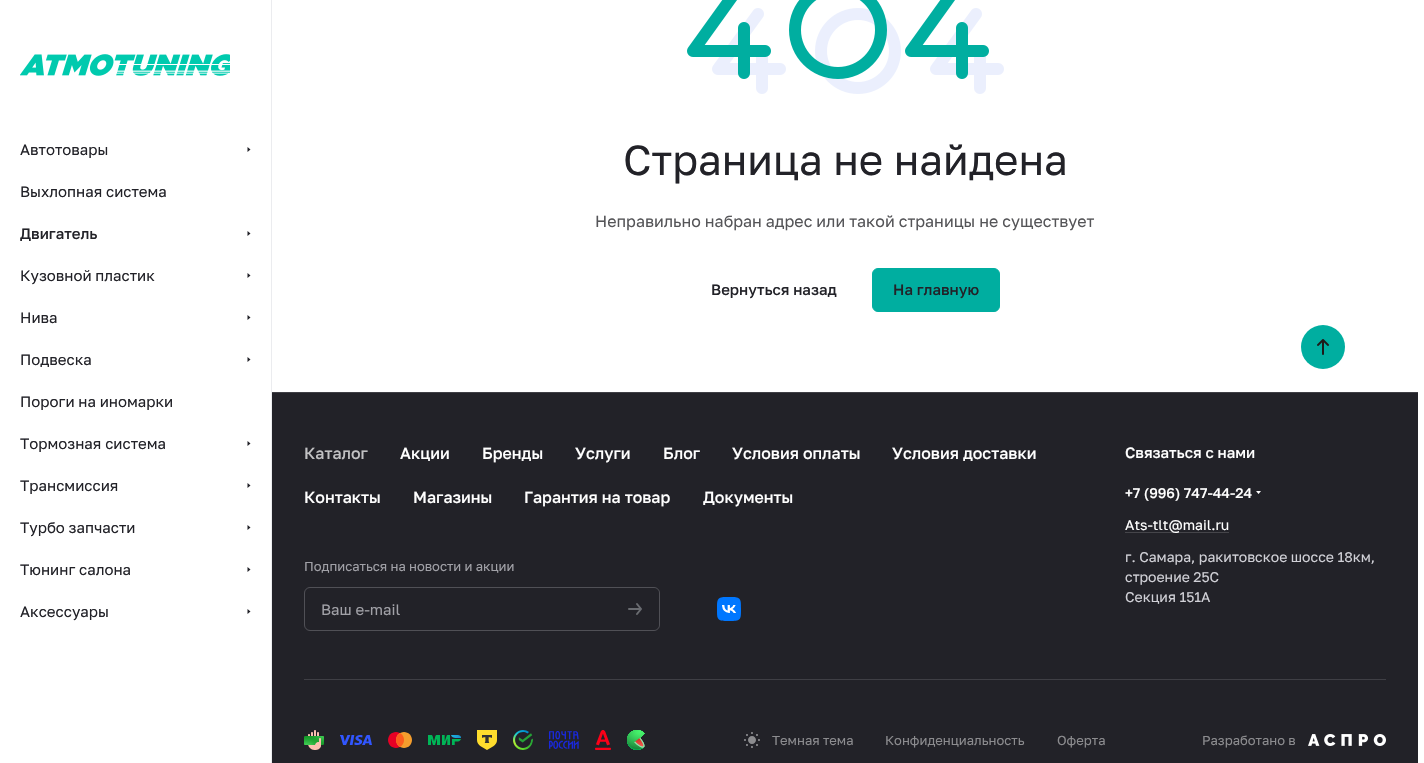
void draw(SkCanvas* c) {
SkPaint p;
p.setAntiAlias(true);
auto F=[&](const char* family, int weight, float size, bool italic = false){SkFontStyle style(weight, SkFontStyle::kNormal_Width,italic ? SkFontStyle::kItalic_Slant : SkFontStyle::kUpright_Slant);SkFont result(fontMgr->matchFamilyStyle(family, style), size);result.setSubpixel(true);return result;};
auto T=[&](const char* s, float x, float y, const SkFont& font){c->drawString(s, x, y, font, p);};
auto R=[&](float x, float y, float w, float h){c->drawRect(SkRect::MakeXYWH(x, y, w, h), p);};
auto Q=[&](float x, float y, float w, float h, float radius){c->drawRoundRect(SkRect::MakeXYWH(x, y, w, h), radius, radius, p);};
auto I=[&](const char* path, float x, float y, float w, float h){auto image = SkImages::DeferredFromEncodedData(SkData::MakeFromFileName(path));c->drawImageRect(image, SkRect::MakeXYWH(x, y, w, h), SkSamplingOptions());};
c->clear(0xffffffff);
p.setColor(0xffebecef);
R(271,0,1,763);
I("1.png",20,54,210,22);
auto f1 = F("Golos Text",400,15);
p.setColor(0xff222228);
T("Автотовары",20,155,f1);
I("2.png",247,147,4,5);
T("Выхлопная система",20,197,f1);
auto f2 = F("Golos Text",500,15);
T("Двигатель",20,239,f2);
I("2.png",247,231,4,5);
T("Кузовной пластик",20,281,f1);
I("2.png",247,273,4,5);
T("Нива",20,323,f1);
I("2.png",247,315,4,5);
T("Подвеска",20,365,f1);
I("2.png",247,357,4,5);
T("Пороги на иномарки",20,407,f1);
T("Тормозная система",20,449,f1);
I("2.png",247,441,4,5);
T("Трансмиссия",20,491,f1);
I("2.png",247,483,4,5);
T("Турбо запчасти",20,533,f1);
I("2.png",247,525,4,5);
T("Тюнинг салона",20,575,f1);
I("2.png",247,567,4,5);
T("Аксессуары",20,617,f1);
I("2.png",247,609,4,5);
I("3.png",687,0,317,94);
auto f3 = F("Golos Text",400,42);
T("Страница не найдена",623,175,f3);
auto f4 = F("Golos Text",400,16);
p.setColor(0xff555558);
T("Неправильно набран адрес или такой страницы не существует",595,227,f4);
p.setColor(0xff222228);
T("Вернуться назад",711,295,f2);
p.setColor(0xff00aea0);
c->drawRoundRect(SkRect::MakeXYWH(872.5,268.5,127,43),5.5,5.5,p);
p.setStroke(true);
p.setStrokeWidth(1);
c->drawRoundRect(SkRect::MakeXYWH(872.5,268.5,127,43),5.5,5.5,p);
p.setStroke(false);
p.setColor(0xff222228);
T("На главную",893,295,f2);
R(272,393,1146,370);
p.setColor(0xff3f3f45);
R(272,392,1146,1);
auto f5 = F("Golos Text",500,16);
p.setColor(0xffc1c1c3);
T("Каталог",304,459,f5);
p.setColor(0xffffffff);
T("Акции",400,459,f5);
T("Бренды",482,459,f5);
T("Услуги",575,459,f5);
T("Блог",663,459,f5);
T("Условия оплаты",732,459,f5);
T("Условия доставки",892,459,f5);
T("Контакты",304,503,f5);
T("Магазины",413,503,f5);
T("Гарантия на товар",524,503,f5);
T("Документы",703,503,f5);
auto f6 = F("Golos Text",400,13);
p.setColor(0xffa1a1a7);
T("Подписаться на новости и акции",304,571,f6);
p.setStroke(true);
p.setColor(0xff505056);
c->drawRoundRect(SkRect::MakeXYWH(304.5,587.5,355,43),5.5,5.5,p);
p.setStroke(false);
p.setColor(0xffa1a1a7);
T("Ваш e-mail",321,615,f1);
p.setColor(0xff222228);
Q(611,588,48,42,6);
I("4.png",628,603,14,12);
I("5.png",717,597,24,24);
p.setColor(0xffffffff);
T("Связаться с нами",1125,458,f2);
auto f7 = F("Golos Text",500,14);
T("+7 (996) 747-44-24",1125,498,f7);
I("6.png",1256,491,5,3);
p.setColor(0xff45454a);
R(1125,532,104,1);
auto f8 = F("Golos Text",400,14);
p.setColor(0xffffffff);
T("Ats-tlt@mail.ru",1125,530,f8);
p.setColor(0xffd1d1d7);
T("г. Самара, ракитовское шоссе 18км,",1125,562,f8);
T("строение 25С",1125,582,f8);
T("Секция 151А",1125,602,f8);
p.setColor(0xff3f3f45);
R(304,679,1082,1);
I("7.png",304,730,20,20);
I("8.png",340,735,32,10);
I("9.png",388,732,24,16);
I("10.png",428,735,33,10);
I("11.png",477,730,20,20);
I("12.png",513,730,20,20);
I("13.png",549,731,30,18);
I("14.png",595,730,16,20);
I("15.png",627,730,18,20);
I("16.png",744,732,16,16);
p.setColor(0xff8c8c8f);
T("Темная тема",772,745,f6);
T("Конфиденциальность",885,745,f6);
T("Оферта",1057,745,f6);
T("Разработано в",1202,745,f6);
I("17.png",1308,734,78,12);
p.setColor(0xff00aea0);
c->drawCircle(1323,347,22,p);
I("18.png",1317,339,12,16);
}
